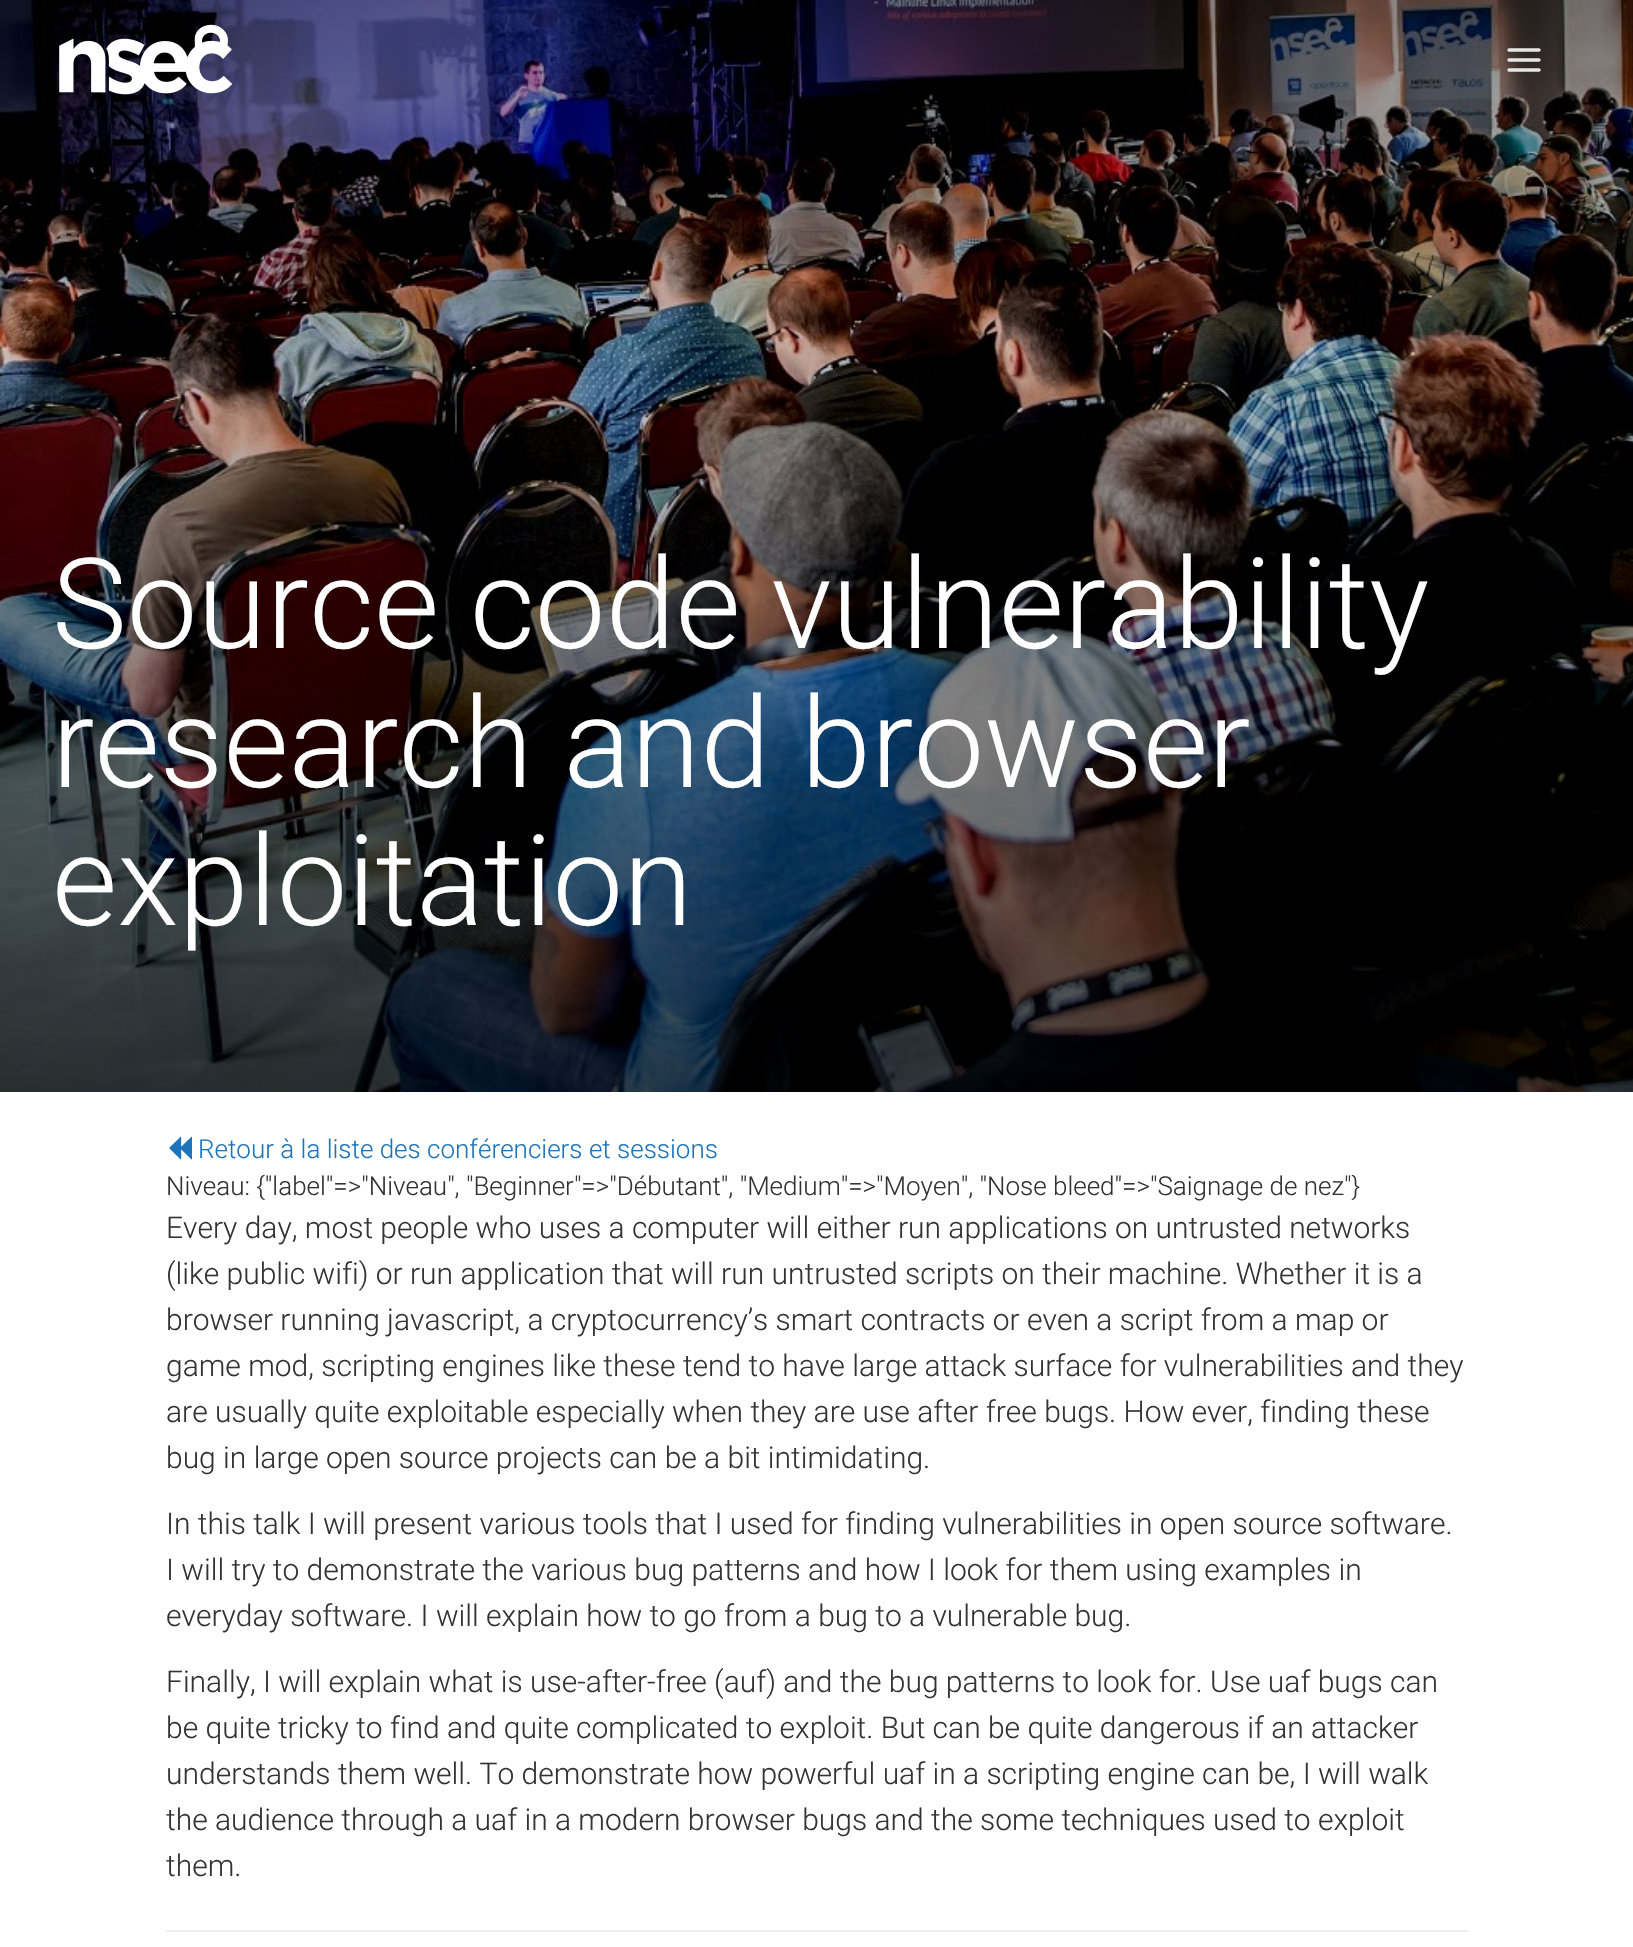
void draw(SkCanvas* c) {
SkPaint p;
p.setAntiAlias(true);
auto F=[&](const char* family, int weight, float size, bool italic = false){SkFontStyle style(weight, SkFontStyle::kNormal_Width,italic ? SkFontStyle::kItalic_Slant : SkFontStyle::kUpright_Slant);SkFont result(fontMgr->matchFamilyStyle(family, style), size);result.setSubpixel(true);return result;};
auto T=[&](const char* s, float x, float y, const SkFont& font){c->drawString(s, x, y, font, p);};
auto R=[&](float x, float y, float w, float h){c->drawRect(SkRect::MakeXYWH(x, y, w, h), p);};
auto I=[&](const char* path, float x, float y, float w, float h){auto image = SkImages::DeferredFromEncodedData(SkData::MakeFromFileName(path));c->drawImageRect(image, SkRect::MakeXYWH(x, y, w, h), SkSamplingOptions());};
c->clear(0xffffffff);
I("3.png",0,0,1633,1092);
I("1.png",59,24,173,71);
I("2.png",1507,48,34,24);
auto f1 = F("Roboto",300,126);
p.setColor(0xffffffff);
T("Source code vulnerability",52,648,f1);
T("research and browser",52,787,f1);
T("exploitation",52,925,f1);
I("4.png",169,1136,23,24);
auto f2 = F("Roboto",300,26);
p.setColor(0xff1c75bc);
T("Retour à la liste des conférenciers et sessions",198,1158,f2);
p.setColor(0xff333333);
T("Niveau: {\"label\"=>\"Niveau\", \"Beginner\"=>\"Débutant\", \"Medium\"=>\"Moyen\", \"Nose bleed\"=>\"Saignage de nez\"}",166,1195,f2);
auto f3 = F("Roboto",300,30);
T("Every day, most people who uses a computer will either run applications on untrusted networks",166,1238,f3);
T("(like public wifi) or run application that will run untrusted scripts on their machine. Whether it is a",166,1284,f3);
T("browser running javascript, a cryptocurrency’s smart contracts or even a script from a map or",166,1330,f3);
T("game mod, scripting engines like these tend to have large attack surface for vulnerabilities and they",166,1376,f3);
T("are usually quite exploitable especially when they are use after free bugs. How ever, finding these",166,1422,f3);
T("bug in large open source projects can be a bit intimidating.",166,1468,f3);
T("In this talk I will present various tools that I used for finding vulnerabilities in open source software.",166,1534,f3);
T("I will try to demonstrate the various bug patterns and how I look for them using examples in",166,1580,f3);
T("everyday software. I will explain how to go from a bug to a vulnerable bug.",166,1626,f3);
T("Finally, I will explain what is use-after-free (auf) and the bug patterns to look for. Use uaf bugs can",166,1692,f3);
T("be quite tricky to find and quite complicated to exploit. But can be quite dangerous if an attacker",166,1738,f3);
T("understands them well. To demonstrate how powerful uaf in a scripting engine can be, I will walk",166,1784,f3);
T("the audience through a uaf in a modern browser bugs and the some techniques used to exploit",166,1830,f3);
T("them.",166,1876,f3);
p.setColor(0xffeeeeee);
R(166,1930,1302,2);
}
